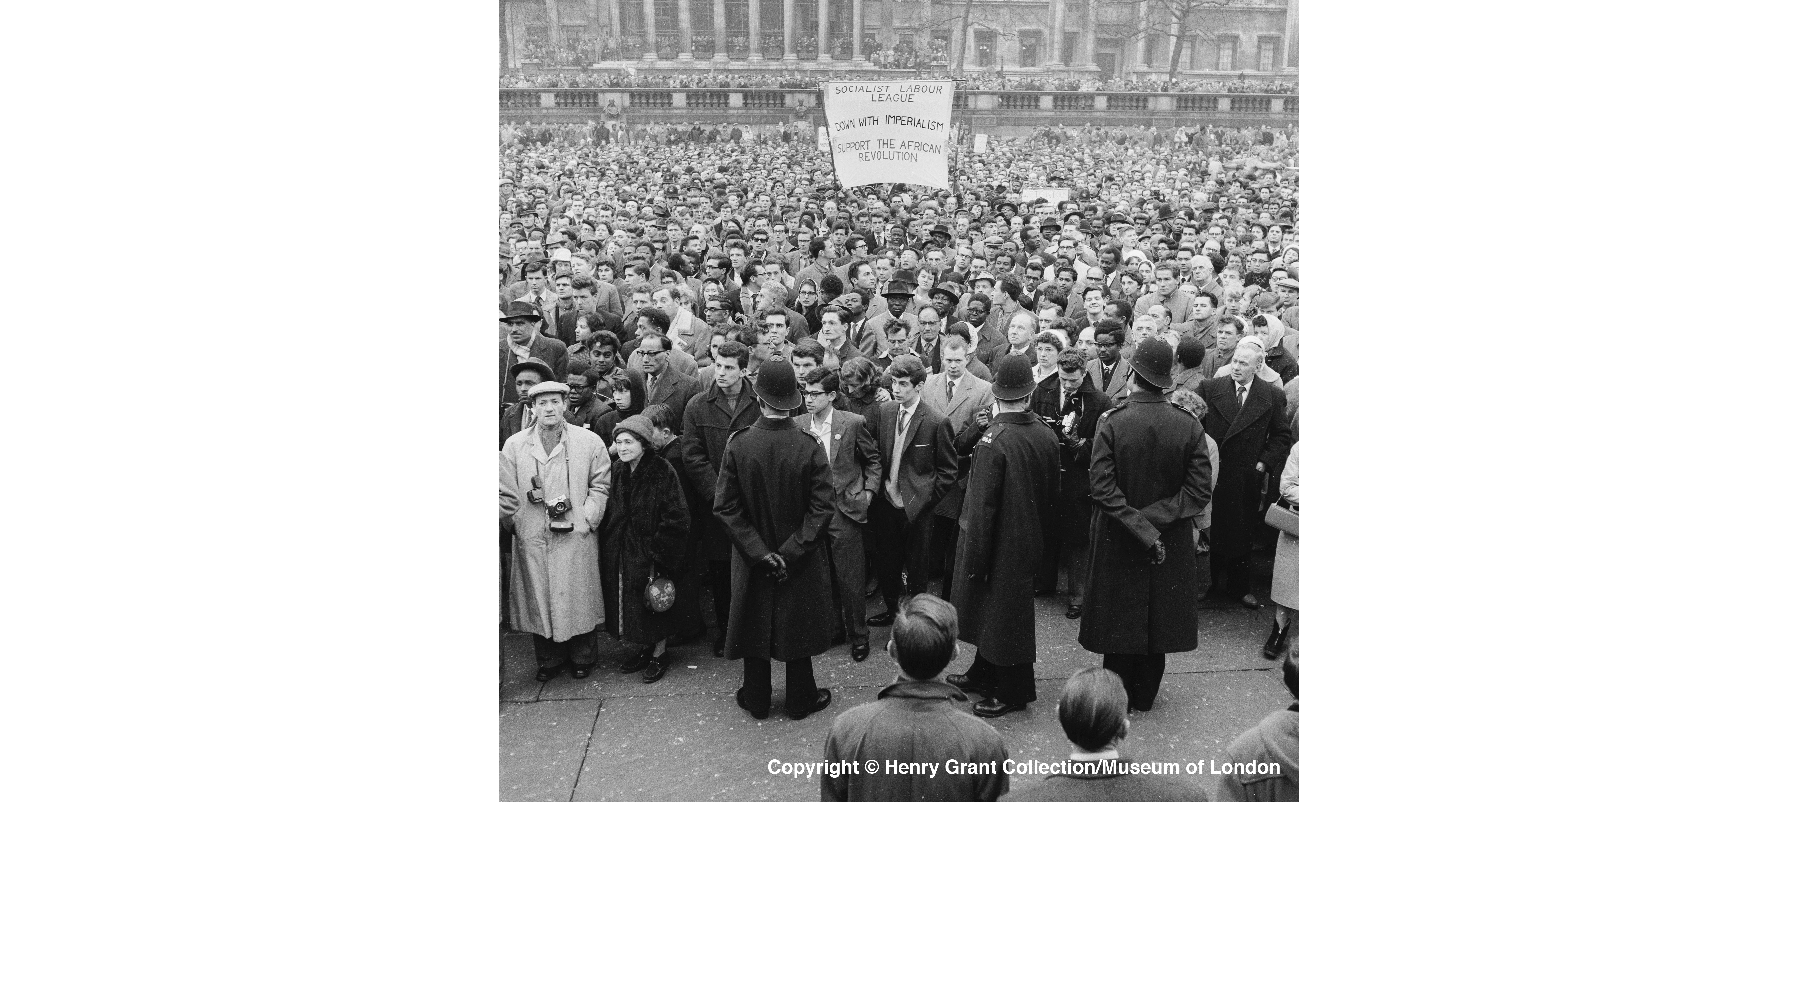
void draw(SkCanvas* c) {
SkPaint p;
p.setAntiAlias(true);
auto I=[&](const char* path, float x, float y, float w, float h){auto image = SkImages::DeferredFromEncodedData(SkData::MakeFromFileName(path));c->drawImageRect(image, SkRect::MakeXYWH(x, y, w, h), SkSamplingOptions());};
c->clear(0xffffffff);
I("1.png",499,0,800,802);
}
